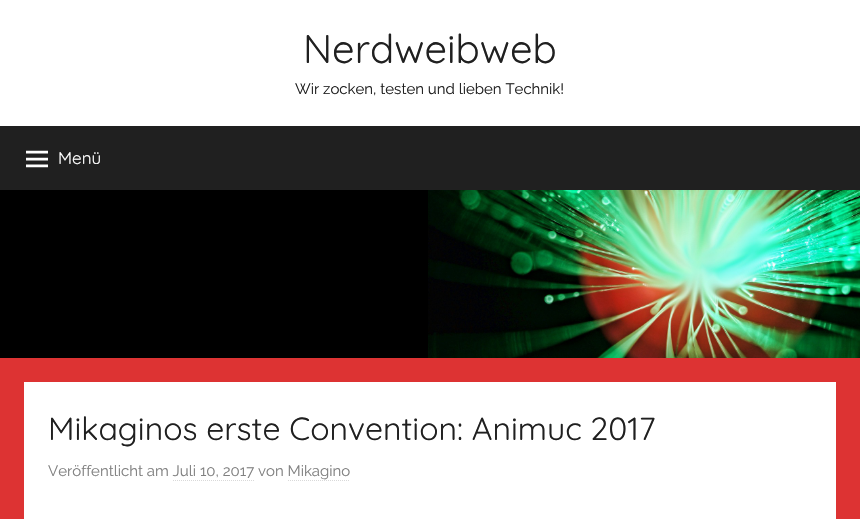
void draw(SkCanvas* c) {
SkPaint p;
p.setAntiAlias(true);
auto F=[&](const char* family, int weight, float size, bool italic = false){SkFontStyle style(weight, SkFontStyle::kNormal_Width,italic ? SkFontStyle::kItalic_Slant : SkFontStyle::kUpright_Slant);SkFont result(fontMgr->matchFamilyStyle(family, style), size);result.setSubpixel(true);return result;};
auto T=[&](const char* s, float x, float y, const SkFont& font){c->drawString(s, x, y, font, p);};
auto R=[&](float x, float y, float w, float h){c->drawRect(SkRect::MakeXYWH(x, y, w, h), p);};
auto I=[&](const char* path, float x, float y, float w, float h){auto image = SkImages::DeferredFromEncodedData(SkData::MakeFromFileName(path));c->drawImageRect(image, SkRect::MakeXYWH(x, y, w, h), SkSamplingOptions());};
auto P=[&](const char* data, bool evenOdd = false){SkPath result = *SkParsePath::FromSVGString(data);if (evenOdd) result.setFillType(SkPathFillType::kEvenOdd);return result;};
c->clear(0xffdd3333);
p.setColor(0xffffffff);
R(0,0,860,126);
auto f1 = F("Quicksand",400,40);
p.setColor(0xff202020);
T("Nerdweibweb",303,63,f1);
auto f2 = F("Raleway",400,15);
T("Wir zocken, testen und lieben Technik!",295,94,f2);
R(0,126,860,64);
I("1.png",26,150,22,18);
auto f3 = F("Quicksand",400,17);
p.setColor(0xffffffff);
T("Menü",58,164,f3);
I("2.png",0,190,860,168);
R(24,382,812,137);
auto f4 = F("Quicksand",400,32);
p.setColor(0xff202020);
T("Mikaginos erste Convention: Animuc 2017",48,440,f4);
p.setColor(0xff808080);
T("Veröffentlicht am Juli 10, 2017 von Mikagino",48,476,f2);
p.setStroke(true);
p.setStrokeWidth(1);
p.setColor(0xffd9d9d9);
p.setPathEffect(SkDashPathEffect::Make({{1,1}}, 0));
c->drawPath(P("M173 480.5h81"),p);
p.setPathEffect(nullptr);
p.setPathEffect(SkDashPathEffect::Make({{1,1}}, 0));
c->drawPath(P("M288 480.5h62"),p);
p.setPathEffect(nullptr);
}
